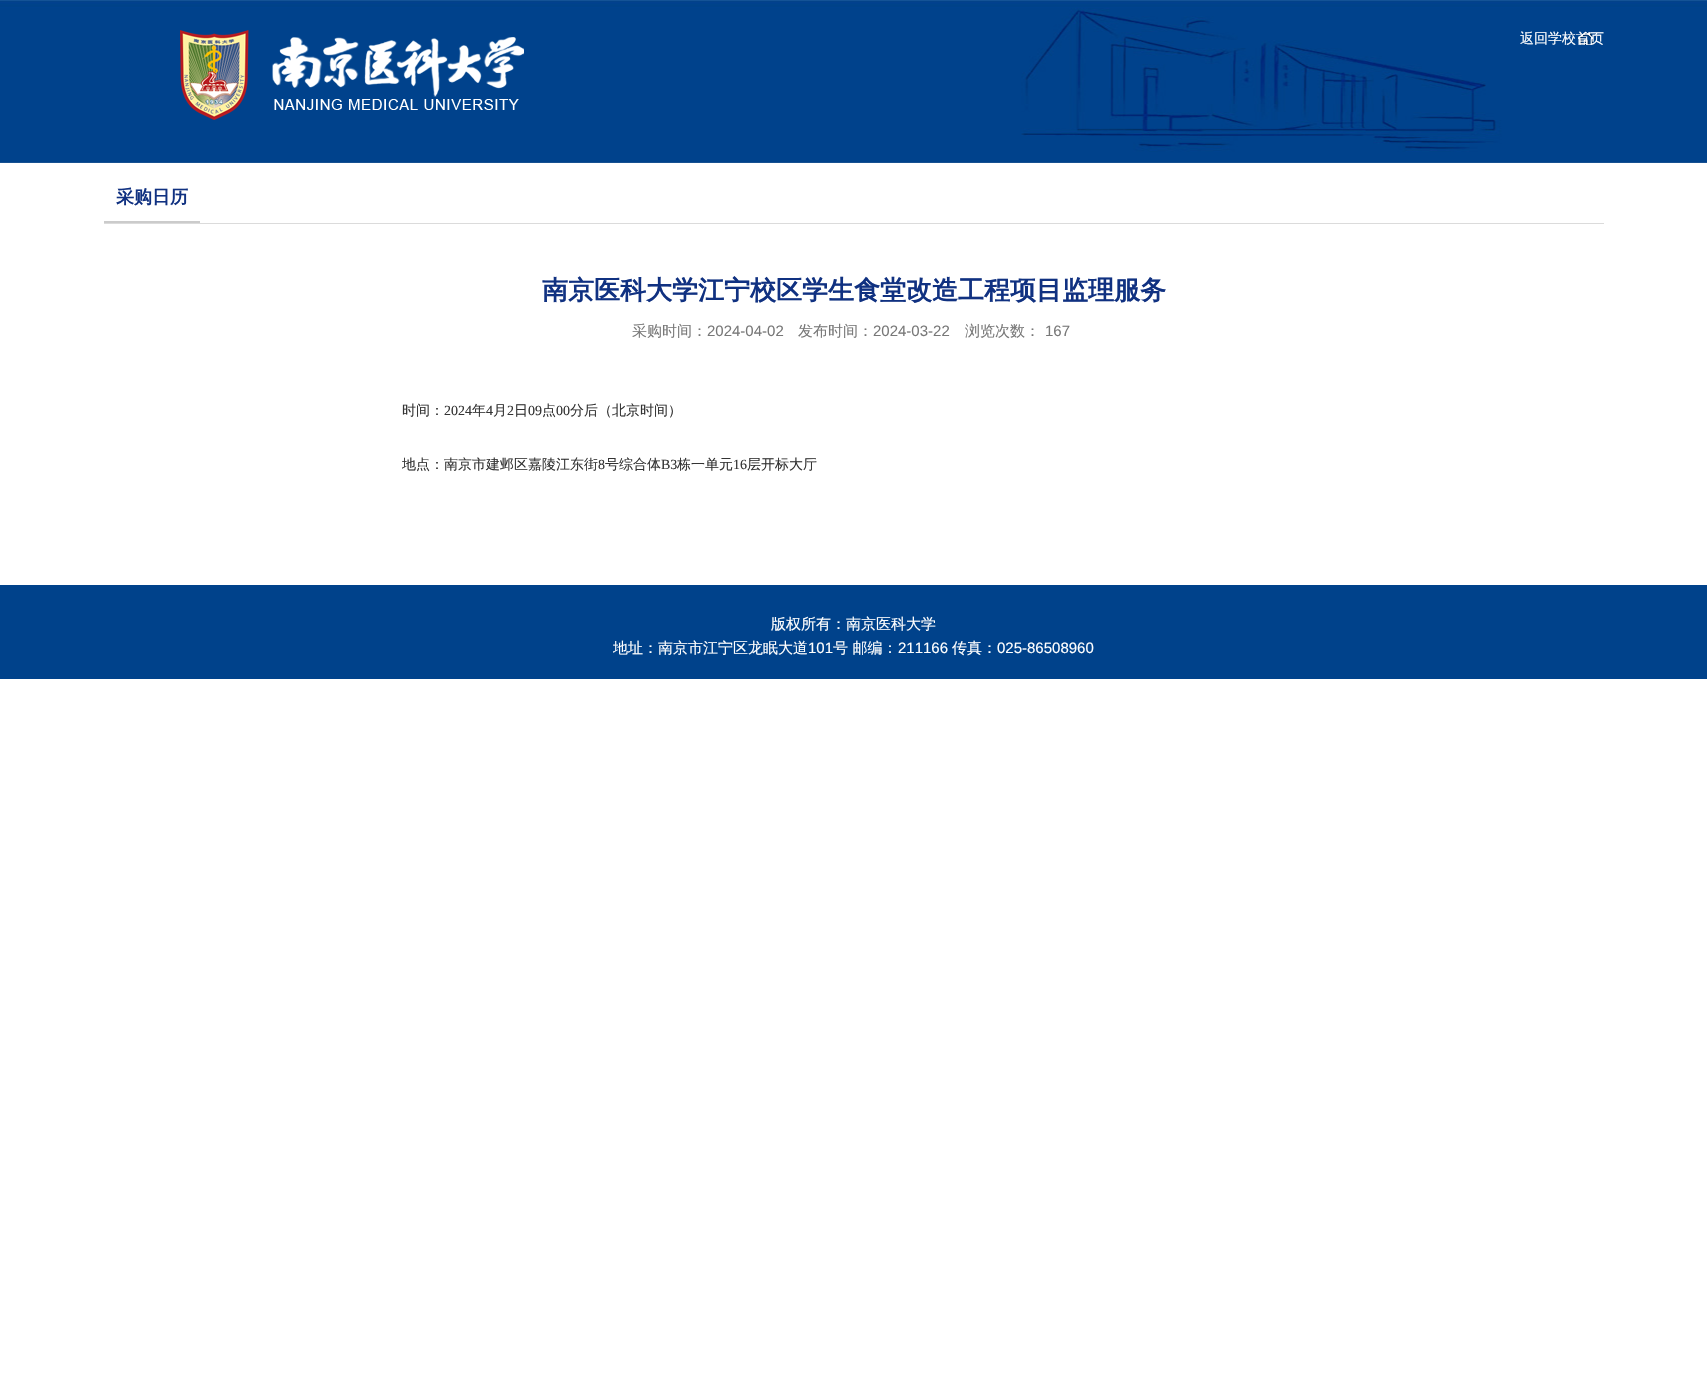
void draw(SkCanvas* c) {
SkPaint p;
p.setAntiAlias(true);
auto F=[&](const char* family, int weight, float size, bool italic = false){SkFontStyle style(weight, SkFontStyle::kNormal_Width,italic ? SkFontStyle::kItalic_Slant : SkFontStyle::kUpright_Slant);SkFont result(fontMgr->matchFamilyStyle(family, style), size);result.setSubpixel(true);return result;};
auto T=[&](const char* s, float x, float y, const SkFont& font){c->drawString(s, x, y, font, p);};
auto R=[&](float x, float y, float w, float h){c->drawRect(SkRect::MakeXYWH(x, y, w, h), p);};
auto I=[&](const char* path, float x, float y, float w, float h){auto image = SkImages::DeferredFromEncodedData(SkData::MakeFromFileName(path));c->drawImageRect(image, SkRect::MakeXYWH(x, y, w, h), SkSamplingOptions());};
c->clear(0xffffffff);
I("1.png",0,0,1707,163);
I("2.png",180,30,344,90);
I("3.png",1578,32,15,13);
auto f1 = F("WenQuanYi Zen Hei",500,14);
p.setColor(0xffffffff);
T("返回学校首页",1520,43,f1);
p.setColor(0xffdbdbdb);
R(104,223,1500,1);
p.setColor(0xffcbcbcb);
R(104,221,96,2);
auto f2 = F("WenQuanYi Zen Hei",700,18);
p.setColor(0xff103181);
T("采购日历",116,203,f2);
auto f3 = F("WenQuanYi Zen Hei",700,26);
T("南京医科大学江宁校区学生食堂改造工程项目监理服务",542,299,f3);
auto f4 = F("WenQuanYi Zen Hei",500,15);
p.setColor(0xff787878);
T("采购时间：",632,336,f4);
auto f5 = F("Liberation Sans",400,15);
T("2024-04-02",707,336,f5);
T("发布时间：",798,336,f4);
T("2024-03-22",873,336,f5);
T("浏览次数：",965,336,f4);
T("167",1045,336,f5);
p.setColor(0xff333333);
T("时间：",402,415,f1);
auto f6 = F("Liberation Serif",400,14);
T("2024",444,415,f6);
T("年",472,415,f1);
T("4",486,415,f6);
T("月",493,415,f1);
T("2",507,415,f6);
T("日",514,415,f1);
T("09",528,415,f6);
T("点",542,415,f1);
T("00",556,415,f6);
T("分后（北京时间）",570,415,f1);
T("地点：南京市建邺区嘉陵江东街",402,469,f1);
T("8",598,469,f6);
T("号综合体",605,469,f1);
T("B3",661,469,f6);
T("栋一单元",677,469,f1);
T("16",733,469,f6);
T("层开标大厅",747,469,f1);
p.setColor(0xff00428b);
R(0,585,1707,94);
p.setColor(0xffffffff);
T("版权所有：南京医科大学",771,629,f4);
T("地址：南京市江宁区龙眠大道",613,653,f4);
T("101",808,653,f5);
T("号 邮编：",833,653,f4);
T("211166",898,653,f5);
T("传真：",952,653,f4);
T("025-86508960",997,653,f5);
}
